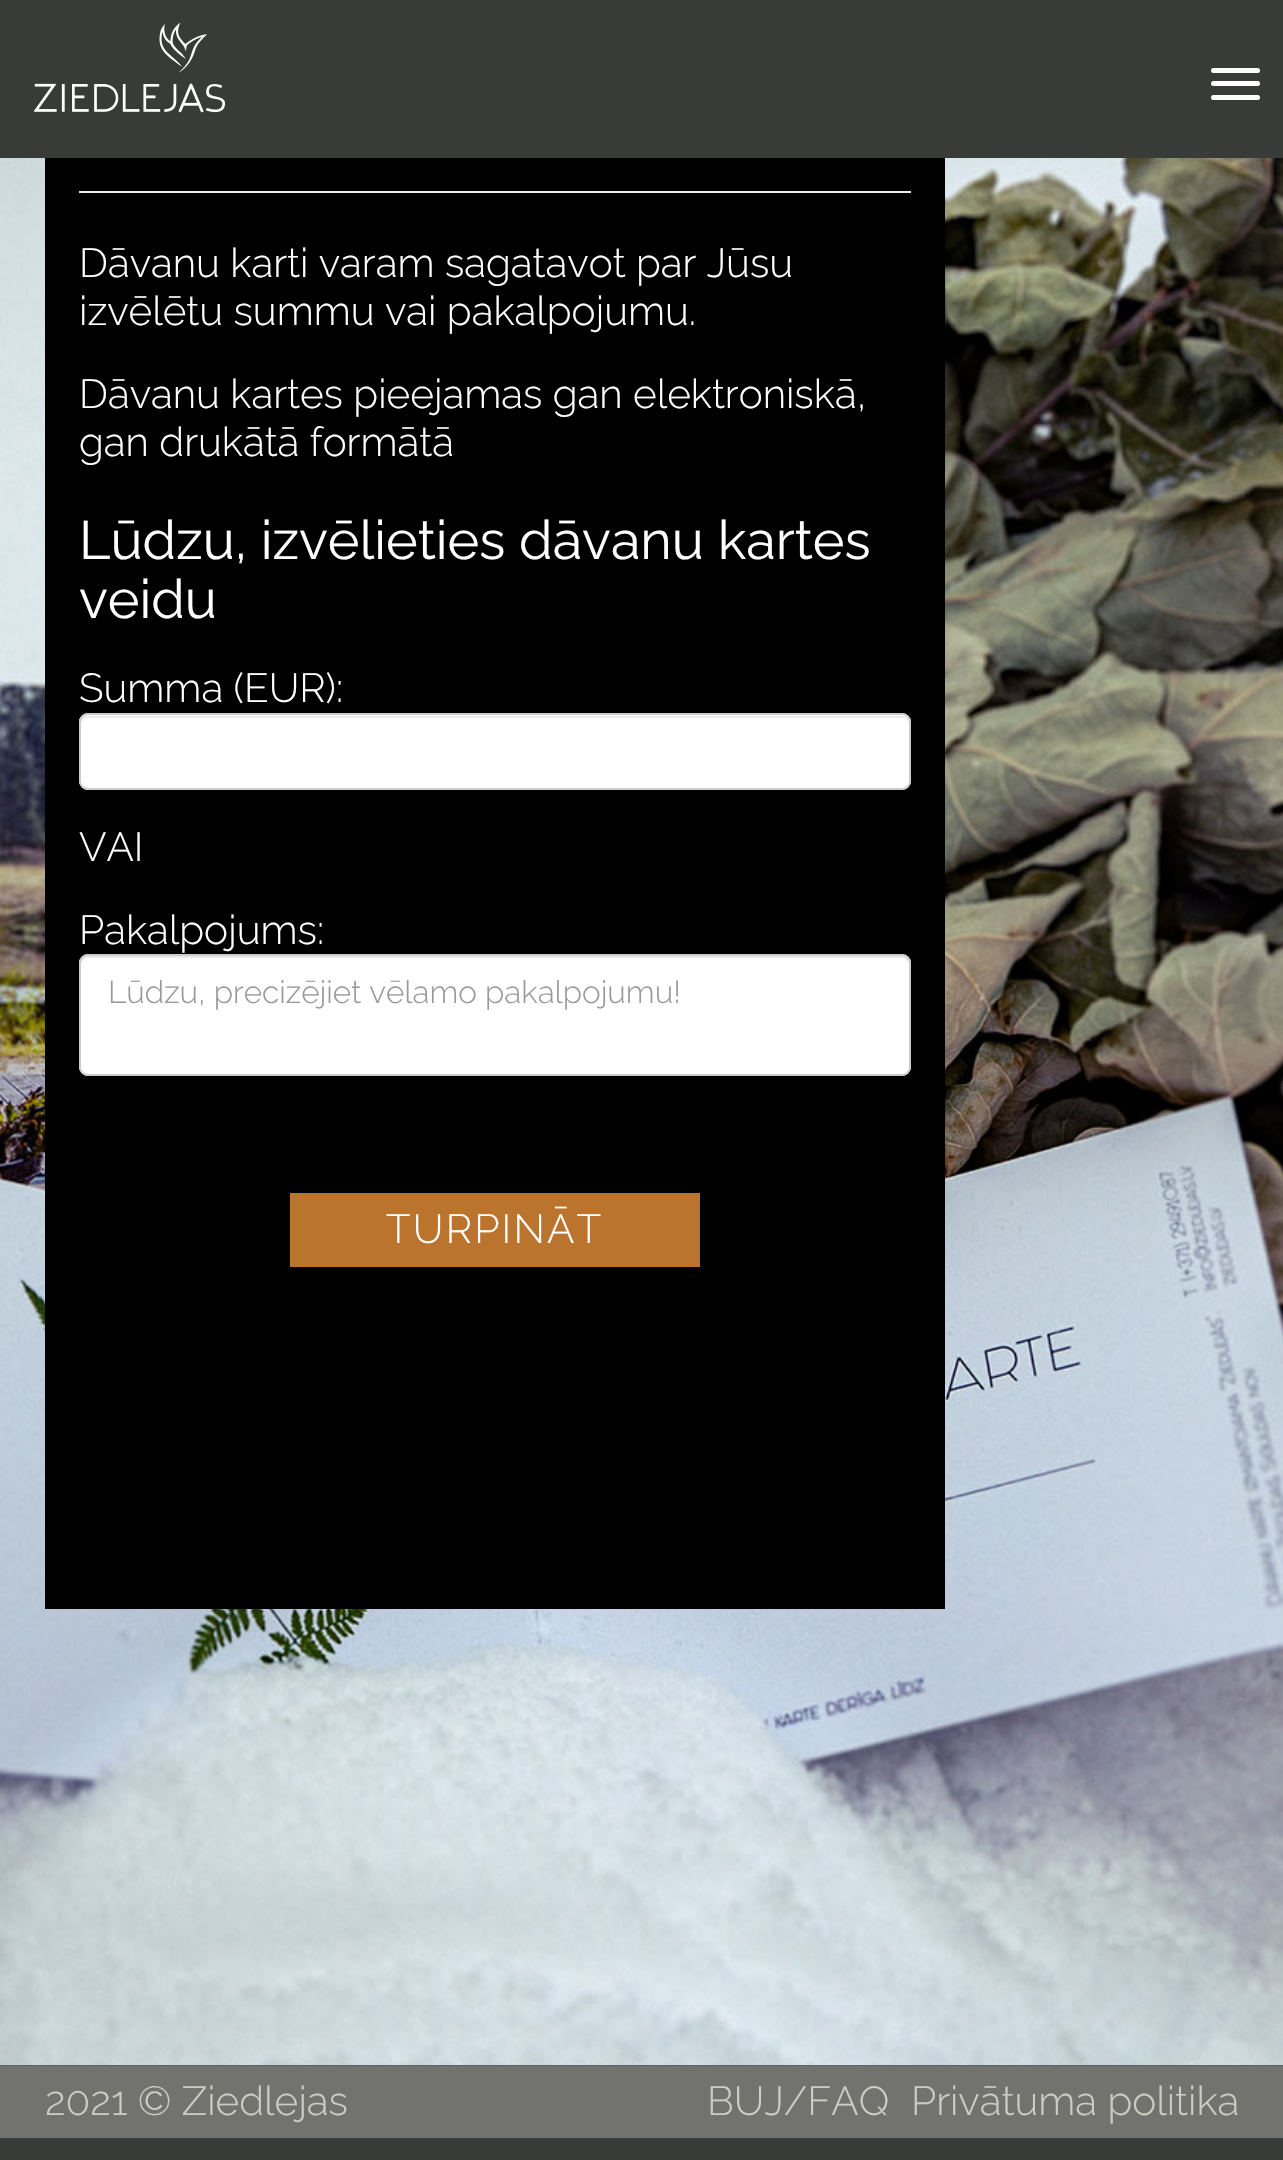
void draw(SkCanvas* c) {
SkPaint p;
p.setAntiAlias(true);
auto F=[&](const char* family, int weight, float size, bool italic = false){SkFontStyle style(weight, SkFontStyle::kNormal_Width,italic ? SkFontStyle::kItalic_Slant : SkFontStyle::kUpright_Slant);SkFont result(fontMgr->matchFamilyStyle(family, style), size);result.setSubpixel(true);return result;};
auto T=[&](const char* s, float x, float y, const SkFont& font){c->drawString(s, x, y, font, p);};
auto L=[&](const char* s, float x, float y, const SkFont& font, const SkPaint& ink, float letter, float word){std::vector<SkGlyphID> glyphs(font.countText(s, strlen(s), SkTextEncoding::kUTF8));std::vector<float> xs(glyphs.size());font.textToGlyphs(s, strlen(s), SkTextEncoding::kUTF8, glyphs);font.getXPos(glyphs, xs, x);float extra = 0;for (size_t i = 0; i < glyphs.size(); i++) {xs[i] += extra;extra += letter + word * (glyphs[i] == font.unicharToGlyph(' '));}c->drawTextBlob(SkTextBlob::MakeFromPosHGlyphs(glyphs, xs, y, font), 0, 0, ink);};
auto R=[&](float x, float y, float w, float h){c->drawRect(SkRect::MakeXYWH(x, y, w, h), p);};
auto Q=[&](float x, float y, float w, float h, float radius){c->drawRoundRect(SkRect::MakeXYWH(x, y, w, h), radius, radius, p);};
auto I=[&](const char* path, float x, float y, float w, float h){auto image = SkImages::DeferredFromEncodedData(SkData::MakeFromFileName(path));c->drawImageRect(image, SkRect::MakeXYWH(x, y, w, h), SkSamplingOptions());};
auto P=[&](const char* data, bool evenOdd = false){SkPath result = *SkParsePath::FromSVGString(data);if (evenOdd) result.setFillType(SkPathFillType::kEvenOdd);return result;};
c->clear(0xff393b38);
I("1.png",34,23,191,90);
p.setColor(0xffffffff);
Q(1211,68,49,5,2.5);
Q(1211,81,49,5,2.5);
Q(1211,95,49,5,2.5);
I("2.png",0,158,1283,1908);
p.setColor(0xff000000);
R(45,158,900,1451);
p.setColor(0xffeeeeee);
R(79,191,832,2);
auto f1 = F("Raleway",300,40.5);
p.setColor(0xffffffff);
T("Dāvanu karti varam sagatavot par Jūsu",79,277,f1);
T("izvēlētu summu vai pakalpojumu.",79,325,f1);
T("Dāvanu kartes pieejamas gan elektroniskā,",79,408,f1);
T("gan drukātā formātā",79,456,f1);
auto f2 = F("Raleway",400,54);
T("Lūdzu, izvēlieties dāvanu kartes",79,559,f2);
T("veidu",79,618,f2);
T("Summa (EUR):",79,702,f1);
Q(79,713,832,77,9);
p.setColor(0xffececec);
c->drawPath(P("M88 718h814c4 0 7 3 7 6v-1c0-4-3-7-7-7h-814c-4 0-7 3-7 7v1c0-3 3-6 7-6z"),p);
p.setStroke(true);
p.setStrokeWidth(2);
p.setColor(0xffcccccc);
c->drawRoundRect(SkRect::MakeXYWH(80,714,830,75),8,8,p);
p.setStroke(false);
p.setColor(0xffffffff);
T("VAI",79,861,f1);
T("Pakalpojums:",79,944,f1);
Q(79,954,832,122,9);
p.setColor(0xffececec);
c->drawPath(P("M88 958h814c4 0 7 4 7 7v-2c0-4-3-7-7-7h-814c-4 0-7 3-7 7v2c0-3 3-7 7-7z"),p);
p.setStroke(true);
p.setColor(0xffcccccc);
c->drawRoundRect(SkRect::MakeXYWH(80,955,830,120),8,8,p);
auto f3 = F("Raleway",300,31.5);
p.setStroke(false);
p.setColor(0xff999999);
T("Lūdzu, precizējiet vēlamo pakalpojumu!",108,1003,f3);
p.setColor(0xffba742e);
R(290,1193,410,74);
p.setColor(0xffffffff);
L("TURPINĀT",386,1243,f1,p,2.25,0);
p.setColor(0xff72736e);
R(0,2066,1283,72);
p.setColor(0xffccccc4);
T("2021 © Ziedlejas",45,2115,f1);
T("BUJ/FAQ",707,2115,f1);
T("Privātuma politika",911,2115,f1);
}
